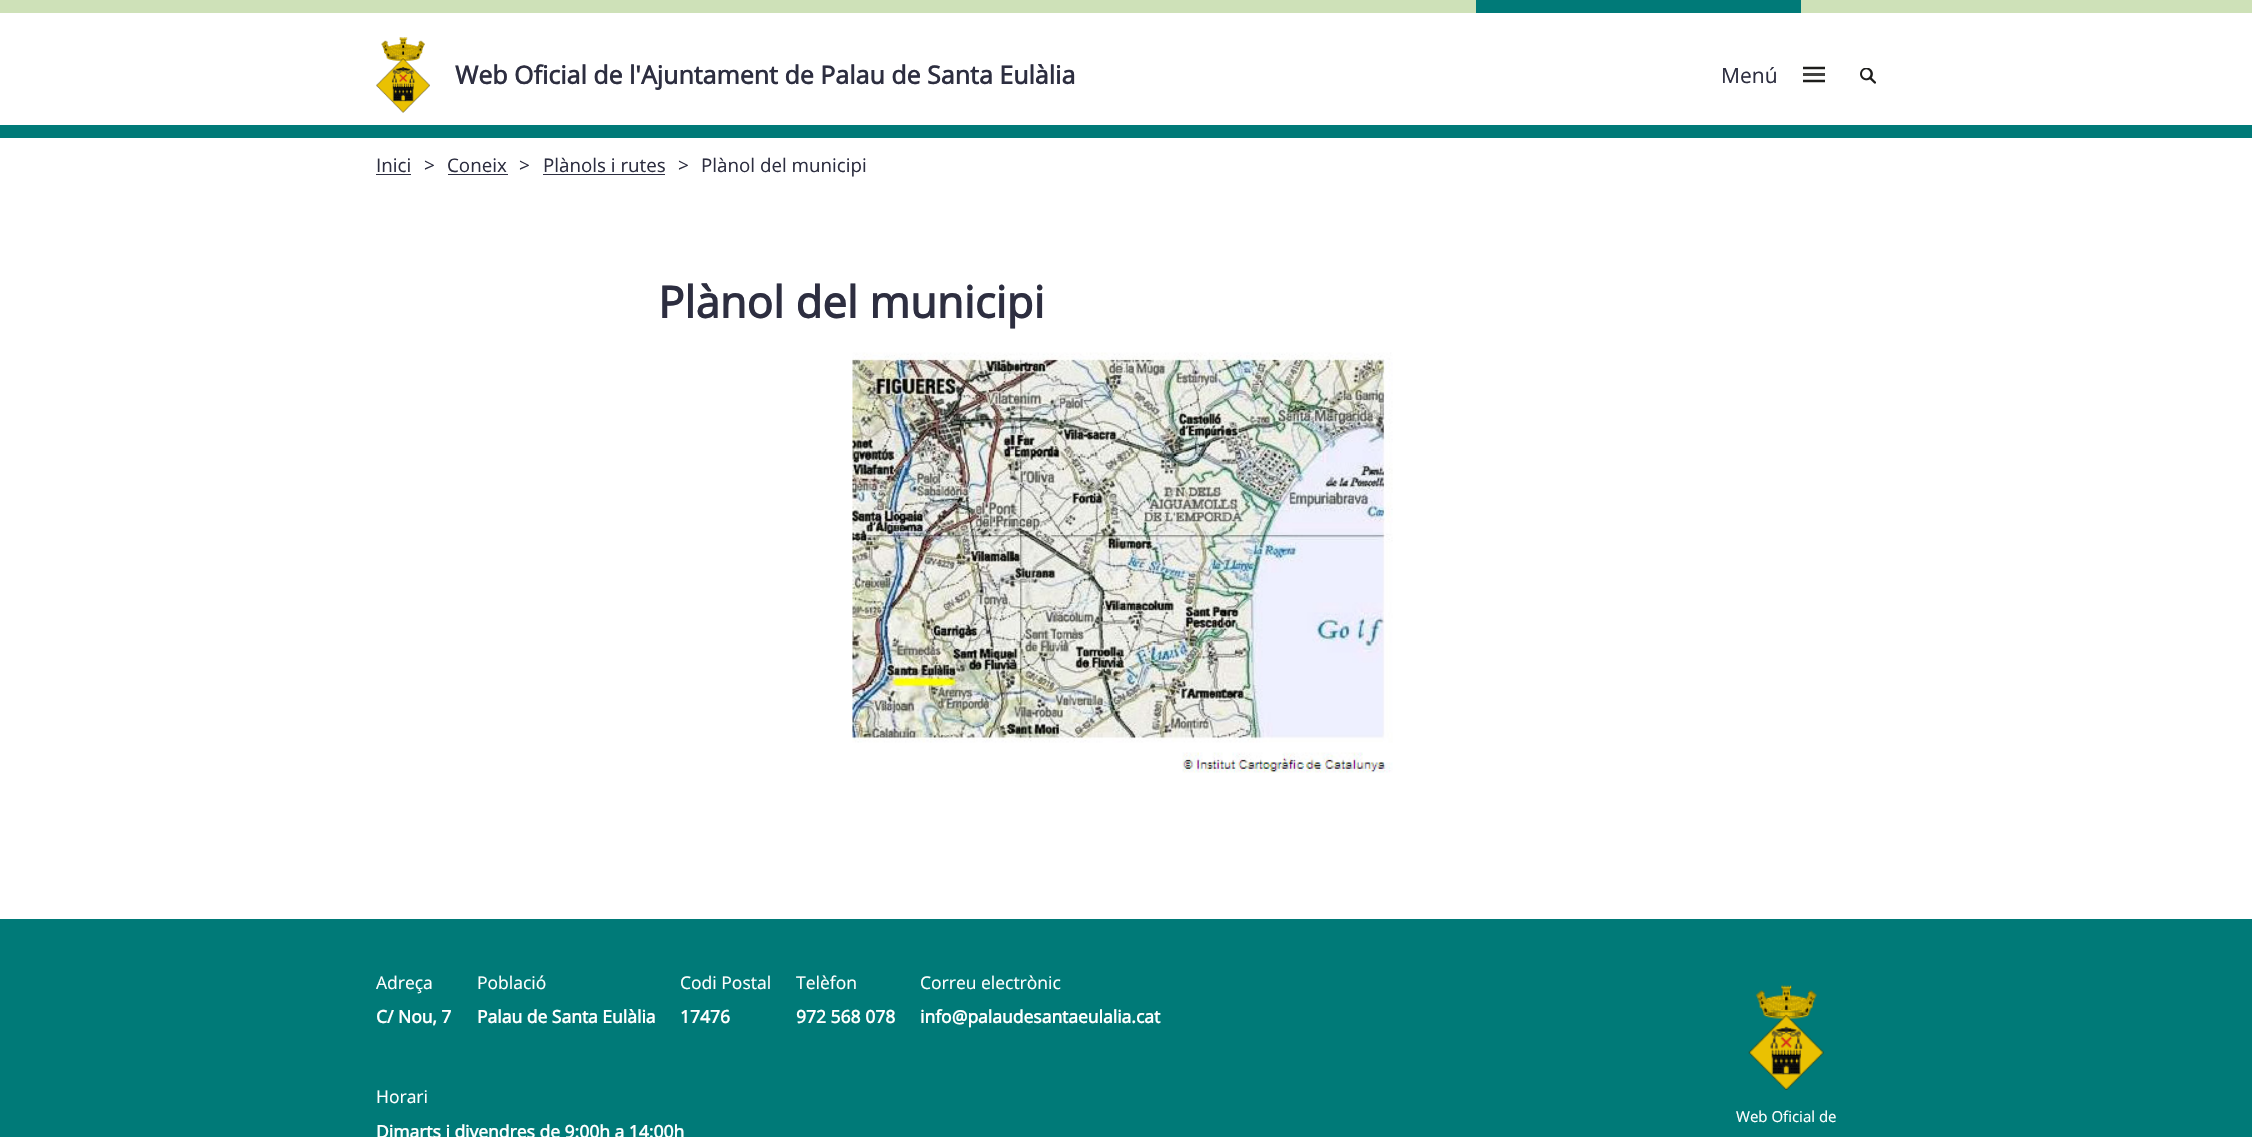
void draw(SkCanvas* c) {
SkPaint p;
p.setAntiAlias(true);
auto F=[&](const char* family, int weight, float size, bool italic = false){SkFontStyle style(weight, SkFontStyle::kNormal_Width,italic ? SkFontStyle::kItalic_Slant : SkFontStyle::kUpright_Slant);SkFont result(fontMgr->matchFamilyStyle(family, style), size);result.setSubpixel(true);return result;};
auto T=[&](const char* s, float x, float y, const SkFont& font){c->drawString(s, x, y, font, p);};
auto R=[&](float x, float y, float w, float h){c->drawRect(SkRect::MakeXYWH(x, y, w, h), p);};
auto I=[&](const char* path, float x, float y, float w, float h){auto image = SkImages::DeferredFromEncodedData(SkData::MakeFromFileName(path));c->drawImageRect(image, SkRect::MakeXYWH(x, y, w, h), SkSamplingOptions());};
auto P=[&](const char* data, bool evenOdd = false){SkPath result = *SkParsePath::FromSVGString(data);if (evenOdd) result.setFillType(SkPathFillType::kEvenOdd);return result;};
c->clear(0xffffffff);
p.setColor(0xff007a78);
R(0,125,2252,13);
p.setColor(0xffcee1b8);
R(0,0,2252,13);
p.setColor(0xff007a78);
R(1476,0,325,13);
I("1.png",376,37,54,76);
auto f1 = F("Open Sans",700,25);
p.setColor(0xff2d2e40);
T("Web Oficial de l'Ajuntament de Palau de Santa Eulàlia",455,84,f1);
auto f2 = F("Open Sans",400,21);
T("Menú",1721,83,f2);
p.setStroke(true);
p.setStrokeWidth(2.5);
p.setColor(0xff1d1d1b);
c->drawPath(P("M1803 68h22"),p);
p.setStroke(false);
p.setColor(0xff434341);
R(1803,73,22,3);
p.setStroke(true);
p.setColor(0xff1d1d1b);
c->drawPath(P("M1803 81h22"),p);
I("2.png",1860,68,16,16);
auto f3 = F("Open Sans",400,18.75);
p.setStroke(false);
p.setColor(0xff2d2e40);
T("Inici",376,172,f3);
R(376,174,35,1);
auto f4 = F("Open Sans",400,19);
T(">",424,172,f4);
T("Coneix",447,172,f3);
R(448,174,60,1);
T(">",519,172,f4);
T("Plànols i rutes",543,172,f3);
R(543,174,122,1);
T(">",678,172,f4);
T("Plànol del municipi",701,172,f3);
auto f5 = F("Open Sans",700,43.75);
T("Plànol del municipi",658,318,f5);
I("3.png",852,352,541,421);
p.setColor(0xff007a78);
R(0,919,2252,218);
auto f6 = F("Open Sans",400,17.5);
p.setColor(0xffffffff);
T("Adreça",376,989,f6);
auto f7 = F("Open Sans",700,17.5);
T("C/ Nou, 7",376,1023,f7);
T("Població",477,989,f6);
T("Palau de Santa Eulàlia",477,1023,f7);
T("Codi Postal",680,989,f6);
T("17476",680,1023,f7);
T("Telèfon",796,989,f6);
T("972 568 078",796,1023,f7);
T("Correu electrònic",920,989,f6);
T("info@palaudesantaeulalia.cat",920,1023,f7);
T("Horari",376,1103,f6);
T("Dimarts i divendres de 9:00h a 14:00h",376,1138,f7);
I("4.png",1748,985,76,105);
auto f8 = F("Open Sans",400,15);
T("Web Oficial de",1736,1122,f8);
}
